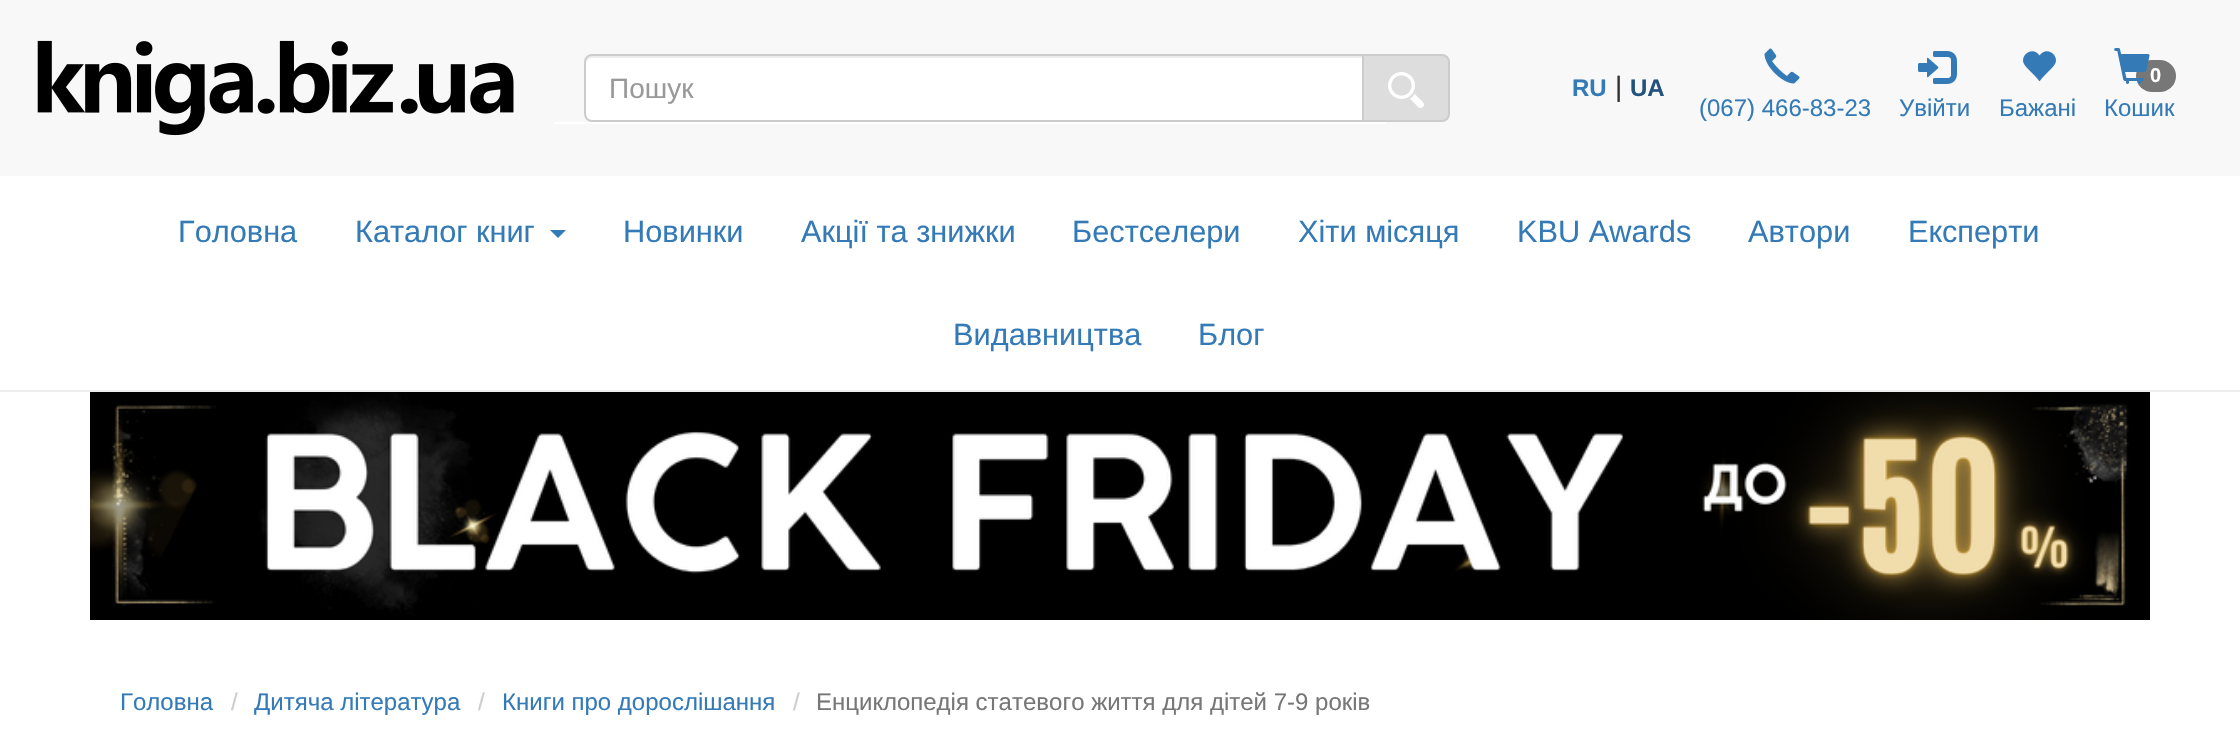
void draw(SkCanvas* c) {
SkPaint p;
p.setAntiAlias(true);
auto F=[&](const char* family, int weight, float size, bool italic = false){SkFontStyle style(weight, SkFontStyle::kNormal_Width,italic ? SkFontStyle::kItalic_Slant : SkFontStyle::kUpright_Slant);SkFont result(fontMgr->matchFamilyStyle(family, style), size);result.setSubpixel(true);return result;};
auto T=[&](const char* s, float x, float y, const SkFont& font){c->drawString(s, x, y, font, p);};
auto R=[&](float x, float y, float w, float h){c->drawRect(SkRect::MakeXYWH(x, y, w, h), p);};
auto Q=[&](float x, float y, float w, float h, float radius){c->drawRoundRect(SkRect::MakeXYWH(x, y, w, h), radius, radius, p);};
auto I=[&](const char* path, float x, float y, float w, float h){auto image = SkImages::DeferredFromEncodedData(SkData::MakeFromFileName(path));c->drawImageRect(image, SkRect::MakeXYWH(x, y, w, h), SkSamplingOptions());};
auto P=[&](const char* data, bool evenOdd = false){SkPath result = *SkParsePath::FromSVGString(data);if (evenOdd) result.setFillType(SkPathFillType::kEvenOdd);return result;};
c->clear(0xffffffff);
p.setColor(0xfff8f8f8);
R(0,0,2240,176);
I("1.png",37,40,477,96);
p.setColor(0xffffffff);
c->drawPath(P("M592 54h772v68h-772c-4.5 0-8-3.5-8-8v-52c0-4.5 3.5-8 8-8z"),p);
p.setColor(0xffececec);
c->drawPath(P("M592 58h770v-2h-770c-3 0-6 3-6 6v2c0-3 3-6 6-6z"),p);
p.setStroke(true);
p.setStrokeWidth(2);
p.setColor(0xffcccccc);
c->drawPath(P("M592 55h771v66h-771c-4 0-7-3-7-7v-52c0-4 3-7 7-7z"),p);
auto f1 = F("Liberation Sans",400,28);
p.setStroke(false);
p.setColor(0xff999999);
T("Пошук",609,98,f1);
p.setColor(0xffdddddd);
c->drawPath(P("M1363 55h79c4 0 7 3 7 7v52c0 4-3 7-7 7h-79z"),p);
p.setStroke(true);
p.setColor(0xffcccccc);
c->drawPath(P("M1363 55h79c4 0 7 3 7 7v52c0 4-3 7-7 7h-79z"),p);
I("2.png",1388,72,36,36);
p.setStroke(false);
p.setColor(0xffffffff);
R(554,122,832,2);
auto f2 = F("Liberation Sans",700,24);
p.setColor(0xff337ab7);
T("RU",1572,96,f2);
p.setColor(0xff333333);
T("|",1615,96,f1);
p.setColor(0xff23527c);
T("UA",1630,96,f2);
p.setColor(0xff777777);
Q(2136,60,40,32,16);
I("3.png",2114,48,36,36);
auto f3 = F("Liberation Sans",700,20);
p.setColor(0xffffffff);
T("0",2150,82,f3);
auto f4 = F("Liberation Sans",400,24);
p.setColor(0xff337ab7);
T("Кошик",2104,116,f4);
I("4.png",1764,48,36,36);
T("(067) 466-83-23",1699,116,f4);
I("5.png",1918,51,39,33);
T("Увійти",1899,116,f4);
I("6.png",2023,51,33,31);
T("Бажані",1999,116,f4);
auto f5 = F("Liberation Sans",400,30.75);
T("Головна",178,242,f5);
T("Каталог книг",355,242,f5);
c->drawPath(P("M550 230h16l-8 8z"),p);
T("Новинки",623,242,f5);
T("Акції та знижки",801,242,f5);
T("Бестселери",1072,242,f5);
T("Хіти місяця",1298,242,f5);
T("KBU Awards",1517,242,f5);
T("Автори",1748,242,f5);
T("Експерти",1908,242,f5);
T("Видавництва",953,345,f5);
T("Блог",1198,345,f5);
p.setColor(0xffeeeeee);
R(0,390,2240,2);
I("7.png",90,392,2060,228);
p.setColor(0xff337ab7);
T("Головна",120,710,f4);
p.setColor(0xffcccccc);
T("/",231,710,f4);
p.setColor(0xff337ab7);
T("Дитяча література",254,710,f4);
p.setColor(0xffcccccc);
T("/",478,710,f4);
p.setColor(0xff337ab7);
T("Книги про дорослішання",502,710,f4);
p.setColor(0xffcccccc);
T("/",793,710,f4);
p.setColor(0xff777777);
T("Енциклопедія статевого життя для дітей 7-9 років",816,710,f4);
}
